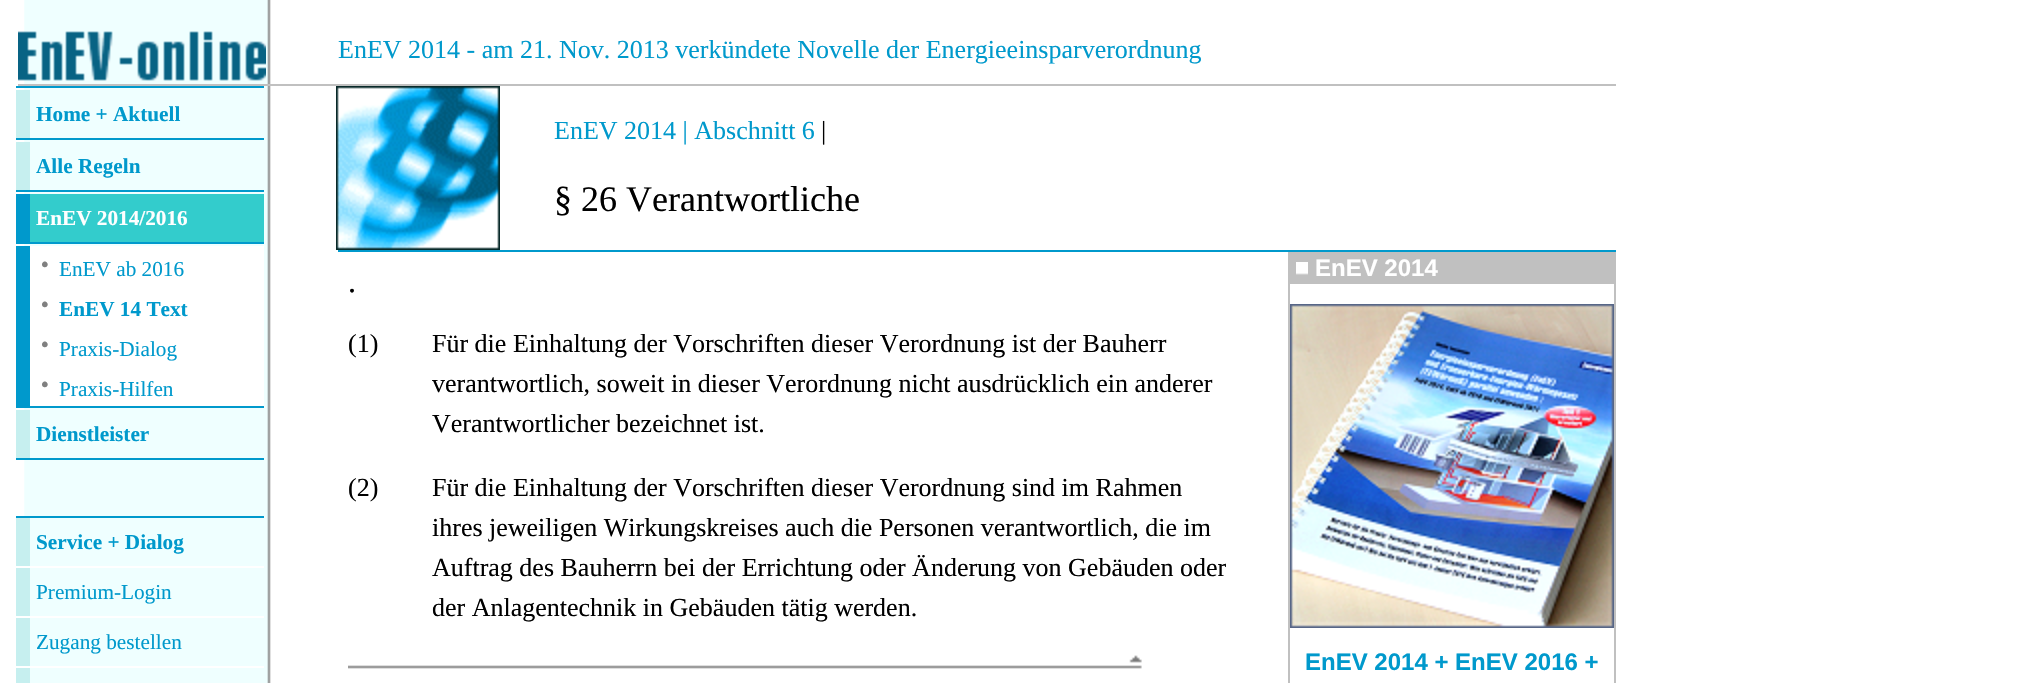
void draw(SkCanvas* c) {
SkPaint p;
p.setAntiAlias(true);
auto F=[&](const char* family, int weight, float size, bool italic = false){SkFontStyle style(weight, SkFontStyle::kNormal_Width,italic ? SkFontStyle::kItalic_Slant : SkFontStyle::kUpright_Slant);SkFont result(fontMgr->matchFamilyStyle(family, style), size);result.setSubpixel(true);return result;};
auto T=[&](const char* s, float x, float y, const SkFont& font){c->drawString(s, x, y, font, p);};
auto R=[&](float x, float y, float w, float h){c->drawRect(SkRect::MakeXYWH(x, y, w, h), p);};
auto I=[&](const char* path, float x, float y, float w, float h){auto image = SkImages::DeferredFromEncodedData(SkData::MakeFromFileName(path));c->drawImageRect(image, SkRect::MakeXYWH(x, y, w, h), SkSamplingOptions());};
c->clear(0xffffffff);
I("1.png",24,0,247,683);
I("2.png",18,31,248,50);
auto f1 = F("Liberation Serif",400,26);
p.setColor(0xff0099cc);
T("EnEV 2014 - am 21. Nov. 2013 verkündete Novelle der Energieeinsparverordnung",338,58,f1);
p.setColor(0xffc0c0c0);
R(16,84,1600,2);
p.setColor(0xffffffff);
R(16,84,2,2);
p.setColor(0xff0099cc);
R(16,86,248,2);
p.setColor(0xffc6efef);
R(16,90,14,48);
auto f2 = F("Liberation Serif",700,21.25);
p.setColor(0xff0099cc);
T("Home + Aktuell",36,121,f2);
R(16,138,248,2);
p.setColor(0xffc6efef);
R(16,142,14,48);
p.setColor(0xff0099cc);
T("Alle Regeln",36,173,f2);
R(16,190,248,2);
R(16,194,14,48);
p.setColor(0xff33cccc);
R(30,194,234,48);
p.setColor(0xffffffff);
T("EnEV 2014/2016",36,225,f2);
p.setColor(0xff0099cc);
R(16,242,248,2);
R(16,246,14,160);
p.setColor(0xffffffff);
R(30,246,234,160);
auto f3 = F("Liberation Serif",700,35);
p.setColor(0xff808080);
T("·",39,276,f3);
auto f4 = F("Liberation Serif",400,21.25);
p.setColor(0xff0099cc);
T("EnEV ab 2016",59,276,f4);
p.setColor(0xff808080);
T("·",39,316,f3);
p.setColor(0xff0099cc);
T("EnEV 14 Text",59,316,f2);
p.setColor(0xff808080);
T("·",39,356,f3);
p.setColor(0xff0099cc);
T("Praxis-Dialog",59,356,f4);
p.setColor(0xff808080);
T("·",39,396,f3);
p.setColor(0xff0099cc);
T("Praxis-Hilfen",59,396,f4);
R(16,406,248,2);
p.setColor(0xffc6efef);
R(16,410,14,48);
p.setColor(0xff0099cc);
T("Dienstleister",36,441,f2);
R(16,458,248,2);
R(16,516,248,2);
p.setColor(0xffc6efef);
R(16,518,14,48);
p.setColor(0xff0099cc);
T("Service + Dialog",36,549,f2);
p.setColor(0xffffffff);
R(16,566,248,2);
p.setColor(0xffc6efef);
R(16,568,14,48);
p.setColor(0xff0099cc);
T("Premium-Login",36,599,f4);
p.setColor(0xffffffff);
R(16,616,248,2);
p.setColor(0xffc6efef);
R(16,618,14,48);
p.setColor(0xff0099cc);
T("Zugang bestellen",36,649,f4);
p.setColor(0xffffffff);
R(16,666,248,2);
p.setColor(0xffc6efef);
R(16,668,14,15);
I("3.png",336,86,164,164);
p.setColor(0xff0099cc);
T("EnEV 2014 | Abschnitt 6",554,139,f1);
p.setColor(0xff000000);
T("|",821,139,f1);
auto f5 = F("Liberation Serif",400,36);
T("§ 26 Verantwortliche",554,211,f5);
p.setColor(0xff0099cc);
R(336,250,1280,2);
p.setColor(0xffffffff);
R(336,250,2,2);
auto f6 = F("Liberation Serif",400,32);
p.setColor(0xff000000);
T(".",348,292,f6);
T("(1)",348,352,f1);
T("Für die Einhaltung der Vorschriften dieser Verordnung ist der Bauherr",432,352,f1);
T("verantwortlich, soweit in dieser Verordnung nicht ausdrücklich ein anderer",432,392,f1);
T("Verantwortlicher bezeichnet ist.",432,432,f1);
T("(2)",348,496,f1);
T("Für die Einhaltung der Vorschriften dieser Verordnung sind im Rahmen",432,496,f1);
T("ihres jeweiligen Wirkungskreises auch die Personen verantwortlich, die im",432,536,f1);
T("Auftrag des Bauherrn bei der Errichtung oder Änderung von Gebäuden oder",432,576,f1);
T("der Anlagentechnik in Gebäuden tätig werden.",432,616,f1);
I("4.png",348,655,794,14);
p.setColor(0xffc0c0c0);
R(1288,252,328,2);
R(1614,252,2,431);
R(1288,252,2,431);
R(1290,254,324,30);
I("5.png",1296,262,12,13);
auto f7 = F("Liberation Sans",700,24);
p.setColor(0xffffffff);
T("EnEV 2014",1315,276,f7);
I("6.png",1290,304,324,324);
p.setColor(0xff0099cc);
T("EnEV 2014 + EnEV 2016 +",1305,670,f7);
}
